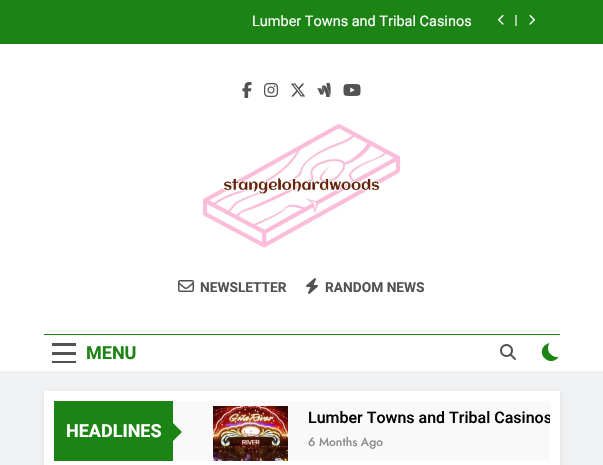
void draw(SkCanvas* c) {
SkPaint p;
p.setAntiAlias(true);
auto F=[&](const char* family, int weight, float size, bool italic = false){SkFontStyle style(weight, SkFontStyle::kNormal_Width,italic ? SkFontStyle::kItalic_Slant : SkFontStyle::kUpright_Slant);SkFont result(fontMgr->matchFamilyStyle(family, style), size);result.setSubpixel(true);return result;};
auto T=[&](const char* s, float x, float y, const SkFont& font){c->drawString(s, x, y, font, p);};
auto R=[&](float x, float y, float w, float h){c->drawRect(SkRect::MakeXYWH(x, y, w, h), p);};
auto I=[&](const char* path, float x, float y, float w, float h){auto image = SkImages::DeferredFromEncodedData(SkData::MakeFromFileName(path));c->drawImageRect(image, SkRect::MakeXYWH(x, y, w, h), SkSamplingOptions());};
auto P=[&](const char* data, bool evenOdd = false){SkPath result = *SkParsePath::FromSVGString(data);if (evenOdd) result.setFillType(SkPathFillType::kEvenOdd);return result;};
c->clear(0xfff0f1f2);
p.setColor(0xff1b8415);
R(0,0,603,44);
auto f1 = F("Roboto",400,14.5);
p.setColor(0xffffffff);
T("Lumber Towns and Tribal Casinos",252,26,f1);
I("1.png",498,15,6,10);
p.setColor(0xffa4cea1);
R(515,15,2,11);
I("2.png",529,15,6,10);
p.setColor(0xffffffff);
R(0,44,603,327);
I("3.png",242,82,10,16);
I("4.png",264,83,14,14);
I("5.png",291,83,15,14);
I("6.png",317,83,14,14);
I("7.png",343,84,18,12);
I("8.png",202,124,199,124);
I("9.png",178,280,16,12);
auto f2 = F("Roboto",700,13.75);
p.setColor(0xff525252);
T("NEWSLETTER",200,292,f2);
I("10.png",306,278,12,16);
T("RANDOM NEWS",325,292,f2);
p.setColor(0xff1b8415);
R(44,334,516,1);
p.setColor(0xff525252);
R(52,343,24,3);
R(52,352,24,3);
R(52,361,24,2);
auto f3 = F("Roboto",700,18);
p.setColor(0xff1b8415);
T("MENU",86,359,f3);
I("11.png",500,344,16,16);
c->drawPath(P("M558.5 357c-7.5 1-13.5-7-9-14c-3 .5-5 2.5-6.5 4.5c-5.5 10 9.5 19 15.5 9.5z"),p);
p.setColor(0x14000000);
p.setMaskFilter(SkMaskFilter::MakeBlur(kNormal_SkBlurStyle, 2));
c->drawRect(SkRect::MakeXYWH(44,393,516,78),p);
p.setMaskFilter(nullptr);
p.setColor(0xffffffff);
R(44,391,516,74);
p.setColor(0xff1b8415);
R(54,401,119,60);
p.setColor(0xffffffff);
T("HEADLINES",66,437,f3);
p.setColor(0xfff9f9f9);
R(173,401,377,60);
p.setColor(0xff1b8415);
c->drawPath(P("M172 442v-20l10 10z"),p);
I("12.png",213,406,75,55);
c->save();
c->clipRect(SkRect::MakeXYWH(308,408,242,19));
auto f4 = F("Roboto",500,16);
p.setColor(0xff000000);
T("Lumber Towns and Tribal Casinos",308,423,f4);
c->restore();
auto f5 = F("Jost",500,12);
p.setColor(0xff8a8a8c);
T("6 Months Ago",308,446,f5);
}
